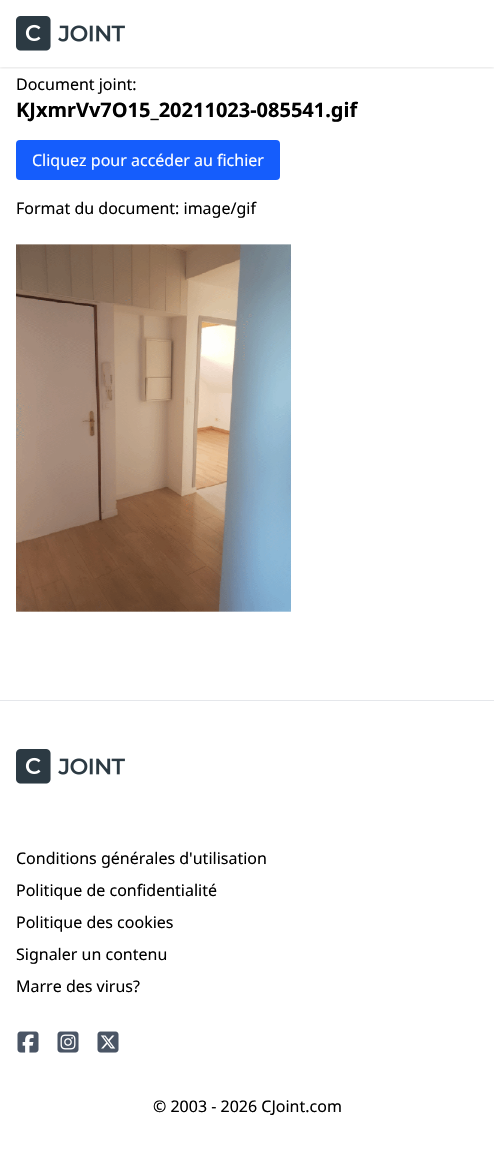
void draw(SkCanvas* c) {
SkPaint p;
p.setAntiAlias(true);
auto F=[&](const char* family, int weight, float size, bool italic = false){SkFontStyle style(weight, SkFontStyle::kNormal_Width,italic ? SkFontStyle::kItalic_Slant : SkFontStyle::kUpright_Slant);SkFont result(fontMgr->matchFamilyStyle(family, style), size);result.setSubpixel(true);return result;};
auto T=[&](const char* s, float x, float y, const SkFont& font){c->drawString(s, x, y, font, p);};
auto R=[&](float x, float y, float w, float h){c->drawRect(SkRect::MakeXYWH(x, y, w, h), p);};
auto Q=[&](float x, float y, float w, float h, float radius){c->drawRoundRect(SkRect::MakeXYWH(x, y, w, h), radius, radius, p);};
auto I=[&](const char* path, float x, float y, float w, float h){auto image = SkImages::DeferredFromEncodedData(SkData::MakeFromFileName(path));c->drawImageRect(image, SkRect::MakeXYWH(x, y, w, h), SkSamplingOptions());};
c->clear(0xffffffff);
c->save();
c->clipRect(SkRect::MakeXYWH(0,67,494,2));
p.setColor(0x1a000000);
p.setMaskFilter(SkMaskFilter::MakeBlur(kNormal_SkBlurStyle, 1.5));
c->drawRect(SkRect::MakeXYWH(0,1,494,67),p);
p.setMaskFilter(nullptr);
c->restore();
I("1.png",16,16,109,35);
auto f1 = F("Noto Sans",400,16);
p.setColor(0xff000000);
T("Document joint:",16,90,f1);
auto f2 = F("Noto Sans",700,20);
T("KJxmrVv7O15_20211023-085541.gif",16,117,f2);
p.setColor(0xff155dfc);
Q(16,140,264,40,4);
p.setColor(0xffffffff);
T("Cliquez pour accéder au fichier",32,166,f1);
p.setColor(0xff000000);
T("Format du document: image/gif",16,214,f1);
I("2.png",16,244,275,368);
p.setColor(0xffe5e7eb);
R(0,700,494,1);
I("1.png",16,749,109,35);
p.setColor(0xff000000);
T("Conditions générales d'utilisation",16,864,f1);
T("Politique de confidentialité",16,896,f1);
T("Politique des cookies",16,928,f1);
T("Signaler un contenu",16,960,f1);
T("Marre des virus?",16,992,f1);
I("3.png",17,1031,22,22);
I("4.png",57,1031,22,22);
I("5.png",97,1031,22,22);
T("© 2003 - 2026 CJoint.com",153,1112,f1);
}
